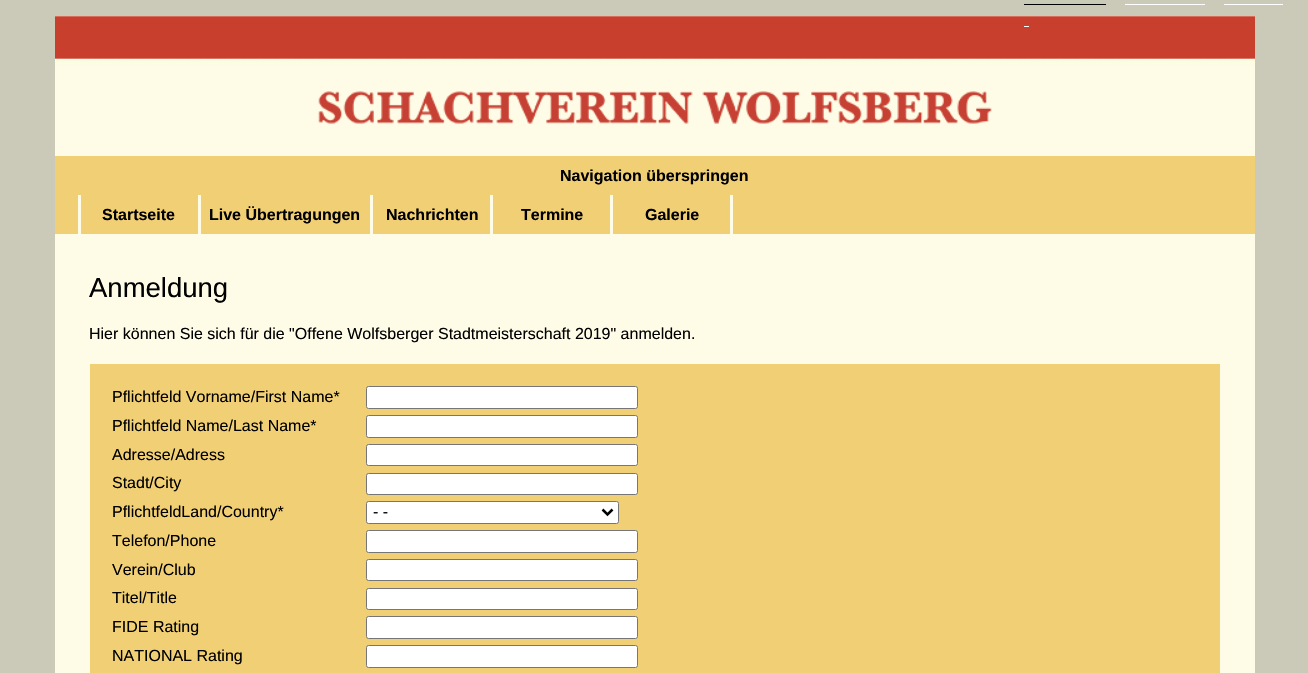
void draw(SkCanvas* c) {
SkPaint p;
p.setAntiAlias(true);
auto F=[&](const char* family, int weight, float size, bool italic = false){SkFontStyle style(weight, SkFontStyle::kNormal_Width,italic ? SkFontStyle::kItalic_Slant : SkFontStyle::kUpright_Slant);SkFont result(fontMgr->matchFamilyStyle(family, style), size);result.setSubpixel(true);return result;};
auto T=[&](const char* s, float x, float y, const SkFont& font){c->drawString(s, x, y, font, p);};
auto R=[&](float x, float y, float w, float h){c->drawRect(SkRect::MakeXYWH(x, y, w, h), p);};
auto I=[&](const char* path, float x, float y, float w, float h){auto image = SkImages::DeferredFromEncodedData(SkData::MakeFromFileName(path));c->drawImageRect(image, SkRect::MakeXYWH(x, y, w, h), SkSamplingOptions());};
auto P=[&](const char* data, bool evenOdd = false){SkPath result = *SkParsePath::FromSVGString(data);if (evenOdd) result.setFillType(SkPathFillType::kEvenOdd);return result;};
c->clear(0xffcbc9b8);
p.setColor(0xfffefce6);
R(55,16,1200,657);
I("1.png",55,16,1200,50);
p.setColor(0xff000000);
R(1024,4,82,1);
p.setColor(0xffffffff);
R(1125,4,80,1);
R(1224,4,59,1);
R(1024,26,5,1);
I("2.png",318,91,674,33);
p.setColor(0xfff1cf74);
R(55,156,1200,78);
auto f1 = F("Liberation Sans",700,16);
p.setColor(0xff000000);
T("Navigation überspringen",560,181,f1);
p.setColor(0xfffefce6);
R(198,195,3,39);
R(78,195,3,39);
p.setColor(0xff000000);
T("Startseite",102,220,f1);
p.setColor(0xfffefce6);
R(370,195,3,39);
p.setColor(0xff000000);
T("Live Übertragungen",209,220,f1);
p.setColor(0xfffefce6);
R(490,195,3,39);
p.setColor(0xff000000);
T("Nachrichten",386,220,f1);
p.setColor(0xfffefce6);
R(610,195,3,39);
p.setColor(0xff000000);
T("Termine",521,220,f1);
p.setColor(0xfffefce6);
R(730,195,3,39);
p.setColor(0xff000000);
T("Galerie",645,220,f1);
auto f2 = F("Liberation Sans",400,27.5);
T("Anmeldung",89,297,f2);
auto f3 = F("Liberation Sans",400,16);
T("Hier können Sie sich für die \"Offene Wolfsberger Stadtmeisterschaft 2019\" anmelden.",89,339,f3);
p.setColor(0xfff1cf74);
R(90,364,1130,309);
p.setColor(0xff000000);
T("Pflichtfeld Vorname/First Name*",112,402,f3);
p.setColor(0xffffffff);
c->drawRoundRect(SkRect::MakeXYWH(366.5,386.5,271,22),2,2,p);
p.setStroke(true);
p.setStrokeWidth(1);
p.setColor(0xff767676);
c->drawRoundRect(SkRect::MakeXYWH(366.5,386.5,271,22),2,2,p);
p.setStroke(false);
p.setColor(0xff000000);
T("Pflichtfeld Name/Last Name*",112,431,f3);
p.setColor(0xffffffff);
c->drawRoundRect(SkRect::MakeXYWH(366.5,415.5,271,22),2,2,p);
p.setStroke(true);
p.setColor(0xff767676);
c->drawRoundRect(SkRect::MakeXYWH(366.5,415.5,271,22),2,2,p);
p.setStroke(false);
p.setColor(0xff000000);
T("Adresse/Adress",112,460,f3);
p.setColor(0xffffffff);
c->drawRoundRect(SkRect::MakeXYWH(366.5,444.5,271,21),2,2,p);
p.setStroke(true);
p.setColor(0xff767676);
c->drawRoundRect(SkRect::MakeXYWH(366.5,444.5,271,21),2,2,p);
p.setStroke(false);
p.setColor(0xff000000);
T("Stadt/City",112,488,f3);
p.setColor(0xffffffff);
c->drawRoundRect(SkRect::MakeXYWH(366.5,473.5,271,21),2,2,p);
p.setStroke(true);
p.setColor(0xff767676);
c->drawRoundRect(SkRect::MakeXYWH(366.5,473.5,271,21),2,2,p);
p.setStroke(false);
p.setColor(0xff000000);
T("PflichtfeldLand/Country*",112,517,f3);
p.setColor(0xffffffff);
c->drawRoundRect(SkRect::MakeXYWH(366.5,501.5,252,22),2,2,p);
p.setStroke(true);
p.setColor(0xff767676);
c->drawRoundRect(SkRect::MakeXYWH(366.5,501.5,252,22),2,2,p);
p.setStrokeWidth(2.5);
p.setColor(0xff000000);
c->drawPath(P("M602.5 509.5l5 5l5-5"),p);
p.setStroke(false);
T("- -",373,517,f3);
T("Telefon/Phone",112,546,f3);
p.setColor(0xffffffff);
c->drawRoundRect(SkRect::MakeXYWH(366.5,530.5,271,22),2,2,p);
p.setStroke(true);
p.setStrokeWidth(1);
p.setColor(0xff767676);
c->drawRoundRect(SkRect::MakeXYWH(366.5,530.5,271,22),2,2,p);
p.setStroke(false);
p.setColor(0xff000000);
T("Verein/Club",112,575,f3);
p.setColor(0xffffffff);
c->drawRoundRect(SkRect::MakeXYWH(366.5,559.5,271,21),2,2,p);
p.setStroke(true);
p.setColor(0xff767676);
c->drawRoundRect(SkRect::MakeXYWH(366.5,559.5,271,21),2,2,p);
p.setStroke(false);
p.setColor(0xff000000);
T("Titel/Title",112,603,f3);
p.setColor(0xffffffff);
c->drawRoundRect(SkRect::MakeXYWH(366.5,588.5,271,21),2,2,p);
p.setStroke(true);
p.setColor(0xff767676);
c->drawRoundRect(SkRect::MakeXYWH(366.5,588.5,271,21),2,2,p);
p.setStroke(false);
p.setColor(0xff000000);
T("FIDE Rating",112,632,f3);
p.setColor(0xffffffff);
c->drawRoundRect(SkRect::MakeXYWH(366.5,616.5,271,22),2,2,p);
p.setStroke(true);
p.setColor(0xff767676);
c->drawRoundRect(SkRect::MakeXYWH(366.5,616.5,271,22),2,2,p);
p.setStroke(false);
p.setColor(0xff000000);
T("NATIONAL Rating",112,661,f3);
p.setColor(0xffffffff);
c->drawRoundRect(SkRect::MakeXYWH(366.5,645.5,271,22),2,2,p);
p.setStroke(true);
p.setColor(0xff767676);
c->drawRoundRect(SkRect::MakeXYWH(366.5,645.5,271,22),2,2,p);
}
